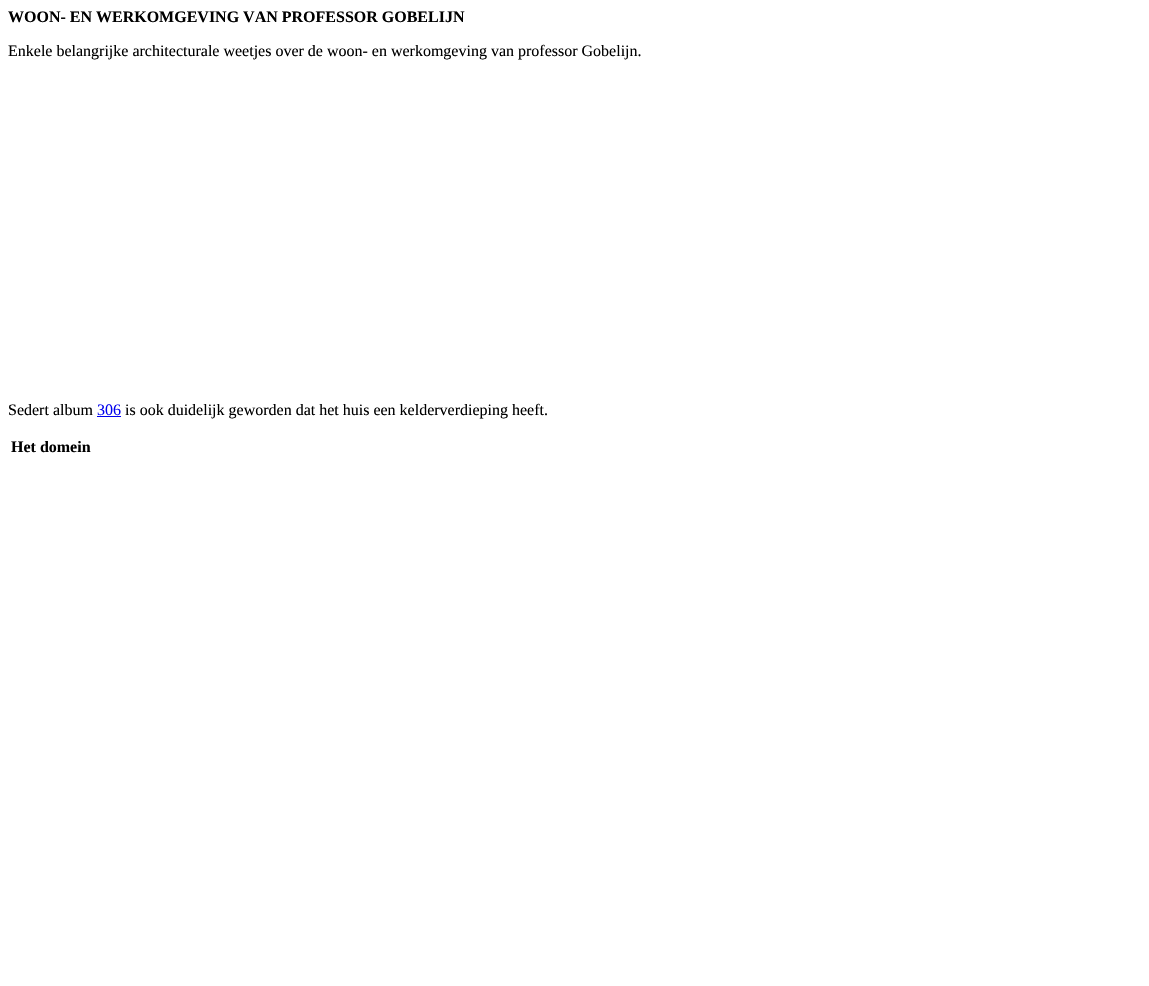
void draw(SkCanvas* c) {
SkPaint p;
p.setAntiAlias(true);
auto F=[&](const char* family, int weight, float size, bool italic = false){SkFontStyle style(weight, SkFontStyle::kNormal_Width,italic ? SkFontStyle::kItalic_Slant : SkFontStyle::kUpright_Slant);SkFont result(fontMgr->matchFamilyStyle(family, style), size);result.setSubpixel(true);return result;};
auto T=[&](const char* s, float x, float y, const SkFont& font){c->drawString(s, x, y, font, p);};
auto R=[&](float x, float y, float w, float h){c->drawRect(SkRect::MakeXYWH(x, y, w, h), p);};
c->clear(0xffffffff);
auto f1 = F("Liberation Serif",700,16);
p.setColor(0xff000000);
T("WOON- EN WERKOMGEVING VAN PROFESSOR GOBELIJN",8,22,f1);
auto f2 = F("Liberation Serif",400,16);
T("Enkele belangrijke architecturale weetjes over de woon- en werkomgeving van professor Gobelijn.",8,56,f2);
T("Sedert album",8,415,f2);
p.setColor(0xff0000ee);
T("306",97,415,f2);
R(97,416,24,1);
p.setColor(0xff000000);
T("is ook duidelijk geworden dat het huis een kelderverdieping heeft.",125,415,f2);
T("Het domein",11,452,f1);
}
